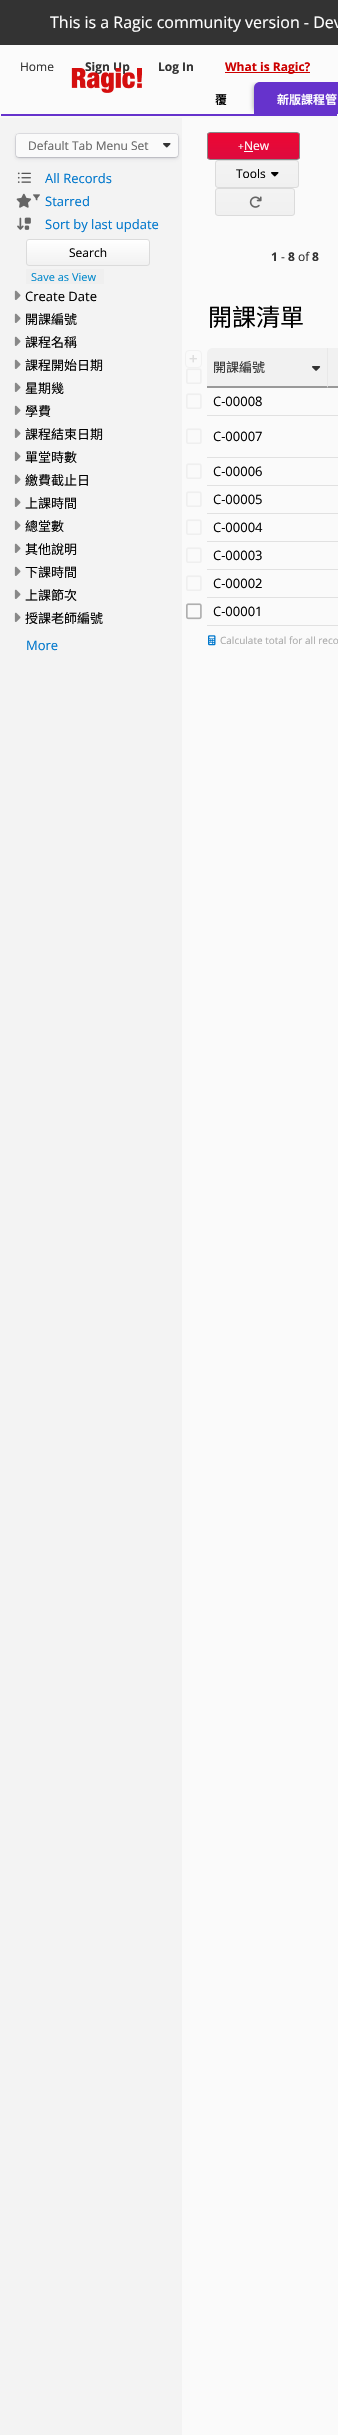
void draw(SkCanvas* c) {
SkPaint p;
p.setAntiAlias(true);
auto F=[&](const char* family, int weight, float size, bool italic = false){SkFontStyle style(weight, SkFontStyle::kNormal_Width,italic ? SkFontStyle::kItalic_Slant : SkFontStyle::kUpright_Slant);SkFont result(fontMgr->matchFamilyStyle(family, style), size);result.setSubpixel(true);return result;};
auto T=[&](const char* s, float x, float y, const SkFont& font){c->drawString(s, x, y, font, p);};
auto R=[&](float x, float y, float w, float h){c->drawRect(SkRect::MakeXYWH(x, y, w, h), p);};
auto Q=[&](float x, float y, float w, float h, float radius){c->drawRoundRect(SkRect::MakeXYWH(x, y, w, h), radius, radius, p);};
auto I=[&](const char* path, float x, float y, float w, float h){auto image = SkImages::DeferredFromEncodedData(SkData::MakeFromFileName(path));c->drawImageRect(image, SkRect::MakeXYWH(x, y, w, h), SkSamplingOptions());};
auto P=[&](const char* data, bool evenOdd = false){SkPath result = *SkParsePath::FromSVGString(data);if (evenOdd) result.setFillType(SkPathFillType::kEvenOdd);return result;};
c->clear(0xfff3f3f3);
p.setColor(0xff333333);
R(0,0,338,45);
auto f1 = F("Open Sans",400,16);
p.setColor(0xffffffff);
T("This is a Ragic community version - Dev",50,28,f1);
p.setColor(0xfffbfbfb);
R(0,45,338,71);
auto f2 = F("Open Sans",400,12);
p.setColor(0xff333333);
T("Home",20,71,f2);
auto f3 = F("Open Sans",700,12);
T("Sign Up",85,71,f3);
T("Log In",158,71,f3);
p.setColor(0xffcc0000);
R(225,72,85,1);
T("What is Ragic?",225,71,f3);
I("1.png",71,68,71,25);
auto f4 = F("Noto Sans TC",600,12);
p.setColor(0xff000000);
T("覆",215,104,f4);
p.setColor(0xfff8f8f8);
R(0,116,338,2);
p.setColor(0xff6633cc);
R(1,114,336,2);
p.setColor(0xfffafafa);
R(182,118,156,2317);
c->save();
c->clipRect(SkRect::MakeXYWH(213,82,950,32));
p.setColor(0xff999999);
p.setMaskFilter(SkMaskFilter::MakeBlur(kNormal_SkBlurStyle, 2.5));
c->drawRoundRect(SkRect::MakeXYWH(254,85,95,26),3,3,p);
p.setMaskFilter(nullptr);
c->restore();
p.setColor(0xff6633cc);
c->drawPath(P("M260 82h78c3.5 0 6 2.5 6 6v26h-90v-26c0-3.5 2.5-6 6-6z"),p);
p.setColor(0xffffffff);
T("新版課程管",277,104,f4);
p.setColor(0x14000000);
p.setMaskFilter(SkMaskFilter::MakeBlur(kNormal_SkBlurStyle, 1));
c->drawRoundRect(SkRect::MakeXYWH(16,135,162,23),3,3,p);
p.setMaskFilter(nullptr);
p.setColor(0x12000000);
p.setMaskFilter(SkMaskFilter::MakeBlur(kNormal_SkBlurStyle, 1));
c->drawRoundRect(SkRect::MakeXYWH(16,135,162,23),3,3,p);
p.setMaskFilter(nullptr);
p.setColor(0x1432325d);
p.setMaskFilter(SkMaskFilter::MakeBlur(kNormal_SkBlurStyle, 2.5));
c->drawRoundRect(SkRect::MakeXYWH(16,136,162,23),3,3,p);
p.setMaskFilter(nullptr);
p.setStroke(true);
p.setStrokeWidth(1);
p.setColor(0x1a32325d);
c->drawRoundRect(SkRect::MakeXYWH(15.5,133.5,163,24),3.5,3.5,p);
p.setStroke(false);
p.setColor(0xfffafafa);
Q(16,134,162,23,3);
p.setColor(0xff666666);
T("Default Tab Menu Set",28,150,f2);
I("2.png",163,143,8,5);
I("3.png",17,172,14,11);
auto f5 = F("Open Sans",400,13);
p.setColor(0xff0077cc);
T("All Records",45,183,f5);
I("4.png",16,193,16,15);
I("5.png",33,194,7,7);
T("Starred",45,206,f5);
I("6.png",17,217,14,13);
T("Sort by last update",45,229,f5);
c->save();
c->clipPath(P("M29 239h118c1.5 0 3 1.5 3 3v21c0 1.5-1.5 3-3 3h-118c-1.5 0-3-1.5-3-3v-21c0-1.5 1.5-3 3-3z"),true);
{
const SkColor colors[] = {0xffffffff,0xfff1f1f1};
const float stops[] = {0,1};
const SkPoint ends[] = {{27,240}, {27,265}};
p.setShader(SkGradientShader::MakeLinear(ends, colors, stops, 2, SkTileMode::kClamp));
p.setAlpha(255);
}
R(26,240,124,25);
c->restore();
p.setStroke(true);
p.setShader(nullptr);
p.setColor(0xffdbdbdb);
c->drawRoundRect(SkRect::MakeXYWH(26.5,239.5,123,26),2.5,2.5,p);
p.setStroke(false);
p.setColor(0xff000000);
T("Search",69,257,f2);
p.setColor(0xffefefef);
R(26,269,78,15);
auto f6 = F("Open Sans",400,11);
p.setColor(0xff0088cc);
T("Save as View",31,281,f6);
I("7.png",14,290,7,10);
p.setColor(0xff000000);
T("Create Date",25,301,f5);
I("7.png",14,313,7,10);
auto f7 = F("Noto Sans TC",400,13);
T("開課編號",25,324,f7);
I("7.png",14,336,7,10);
T("課程名稱",25,347,f7);
I("7.png",14,359,7,10);
T("課程開始日期",25,370,f7);
I("7.png",14,382,7,10);
T("星期幾",25,393,f7);
I("7.png",14,405,7,10);
T("學費",25,416,f7);
I("7.png",14,428,7,10);
T("課程結束日期",25,439,f7);
I("7.png",14,451,7,10);
T("單堂時數",25,462,f7);
I("7.png",14,474,7,10);
T("繳費截止日",25,485,f7);
I("7.png",14,497,7,10);
T("上課時間",25,508,f7);
I("7.png",14,520,7,10);
T("總堂數",25,531,f7);
I("7.png",14,543,7,10);
T("其他說明",25,554,f7);
I("7.png",14,566,7,10);
T("下課時間",25,577,f7);
I("7.png",14,589,7,10);
T("上課節次",25,600,f7);
I("7.png",14,612,7,10);
T("授課老師編號",25,623,f7);
p.setColor(0xff0077cc);
T("More",26,650,f5);
c->save();
c->clipPath(P("M210 132h87c1.5 0 3 1.5 3 3v22c0 1.5-1.5 3-3 3h-87c-1.5 0-3-1.5-3-3v-22c0-1.5 1.5-3 3-3z"),true);
{
const SkColor colors[] = {0xffed0733,0xffdd0b3e};
const float stops[] = {0,1};
const SkPoint ends[] = {{254,133}, {254,159}};
p.setShader(SkGradientShader::MakeLinear(ends, colors, stops, 2, SkTileMode::kClamp));
p.setAlpha(255);
}
R(207,133,93,26);
c->restore();
p.setStroke(true);
p.setShader(nullptr);
p.setColor(0xff888888);
c->drawRoundRect(SkRect::MakeXYWH(207.5,132.5,92,27),2.5,2.5,p);
auto f8 = F("Open Sans",400,10);
p.setStroke(false);
p.setColor(0xffffffff);
T("+",238,150,f8);
T("New",244,150,f2);
R(244,151,9,1);
c->save();
c->clipPath(P("M218 160h78c1.5 0 3 1.5 3 3v22c0 1.5-1.5 3-3 3h-78c-1.5 0-3-1.5-3-3v-22c0-1.5 1.5-3 3-3z"),true);
{
const SkColor colors[] = {0xfff3f3f3,0xfff0f0f0};
const float stops[] = {0,1};
const SkPoint ends[] = {{216,161}, {216,187}};
p.setShader(SkGradientShader::MakeLinear(ends, colors, stops, 2, SkTileMode::kClamp));
p.setAlpha(255);
}
R(215,161,84,26);
c->restore();
p.setStroke(true);
p.setShader(nullptr);
p.setColor(0xffdbdbdb);
c->drawRoundRect(SkRect::MakeXYWH(215.5,160.5,83,27),2.5,2.5,p);
p.setStroke(false);
p.setColor(0xff000000);
T("Tools",236,178,f2);
I("8.png",271,172,8,5);
c->save();
c->clipPath(P("M218 188h74c1.5 0 3 1.5 3 3v22c0 1.5-1.5 3-3 3h-74c-1.5 0-3-1.5-3-3v-22c0-1.5 1.5-3 3-3z"),true);
{
const SkColor colors[] = {0xfff3f3f3,0xfff0f0f0};
const float stops[] = {0,1};
const SkPoint ends[] = {{216,189}, {216,215}};
p.setShader(SkGradientShader::MakeLinear(ends, colors, stops, 2, SkTileMode::kClamp));
p.setAlpha(255);
}
R(215,189,80,26);
c->restore();
p.setStroke(true);
p.setShader(nullptr);
p.setColor(0xffdbdbdb);
c->drawRoundRect(SkRect::MakeXYWH(215.5,188.5,79,27),2.5,2.5,p);
I("9.png",249,196,13,12);
p.setStroke(false);
p.setColor(0xff333333);
T("1",271,261,f3);
T("-",281,261,f2);
T("8",288,261,f3);
T("of",298,261,f2);
T("8",312,261,f3);
auto f9 = F("Noto Sans TC",400,24);
p.setColor(0xff000000);
T("開課清單",208,326,f9);
p.setStroke(true);
p.setColor(0xfff1f1f1);
c->drawRoundRect(SkRect::MakeXYWH(185.5,350.5,16,17),3.5,3.5,p);
auto f10 = F("Open Sans",600,15);
p.setStroke(false);
p.setColor(0xffdddddd);
T("+",189,364,f10);
I("10.png",186,368,16,16);
p.setColor(0xfff1f1f1);
R(328,348,10,38);
p.setColor(0xff999999);
c->drawPath(P("M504 388h-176v-2h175z"),p);
p.setColor(0xfff1f1f1);
c->drawPath(P("M213 348h114v38h-120v-32c0-3.5 2.5-6 6-6z"),p);
p.setColor(0xffe8e8e8);
c->drawPath(P("M328 348h-1v38l1 2z"),p);
p.setColor(0xff999999);
c->drawPath(P("M328 388l-1-2h-120v2z"),p);
p.setColor(0xff333333);
T("開課編號",213,372,f7);
I("11.png",312,366,9,5);
I("10.png",186,393,16,16);
p.setColor(0xffe1e1e1);
R(207,415,131,1);
p.setColor(0xff000000);
T("C-00008",213,406,f5);
I("10.png",186,428,16,16);
p.setColor(0xffe1e1e1);
R(207,457,131,1);
p.setColor(0xff000000);
T("C-00007",213,441,f5);
I("10.png",186,463,16,16);
p.setColor(0xffe1e1e1);
R(207,485,131,1);
p.setColor(0xff000000);
T("C-00006",213,476,f5);
I("10.png",186,491,16,16);
p.setColor(0xffe1e1e1);
R(207,513,131,1);
p.setColor(0xff000000);
T("C-00005",213,504,f5);
I("10.png",186,519,16,16);
p.setColor(0xffe1e1e1);
R(207,541,131,1);
p.setColor(0xff000000);
T("C-00004",213,532,f5);
I("10.png",186,547,16,16);
p.setColor(0xffe1e1e1);
R(207,569,131,1);
p.setColor(0xff000000);
T("C-00003",213,560,f5);
I("10.png",186,575,16,16);
p.setColor(0xffe1e1e1);
R(207,597,131,1);
p.setColor(0xff000000);
T("C-00002",213,588,f5);
I("12.png",186,603,16,17);
p.setColor(0xffe1e1e1);
R(207,625,131,1);
p.setColor(0xff000000);
T("C-00001",213,616,f5);
I("13.png",208,635,8,11);
p.setColor(0xffaaaaaa);
T("Calculate total for all reco",220,644,f8);
}
